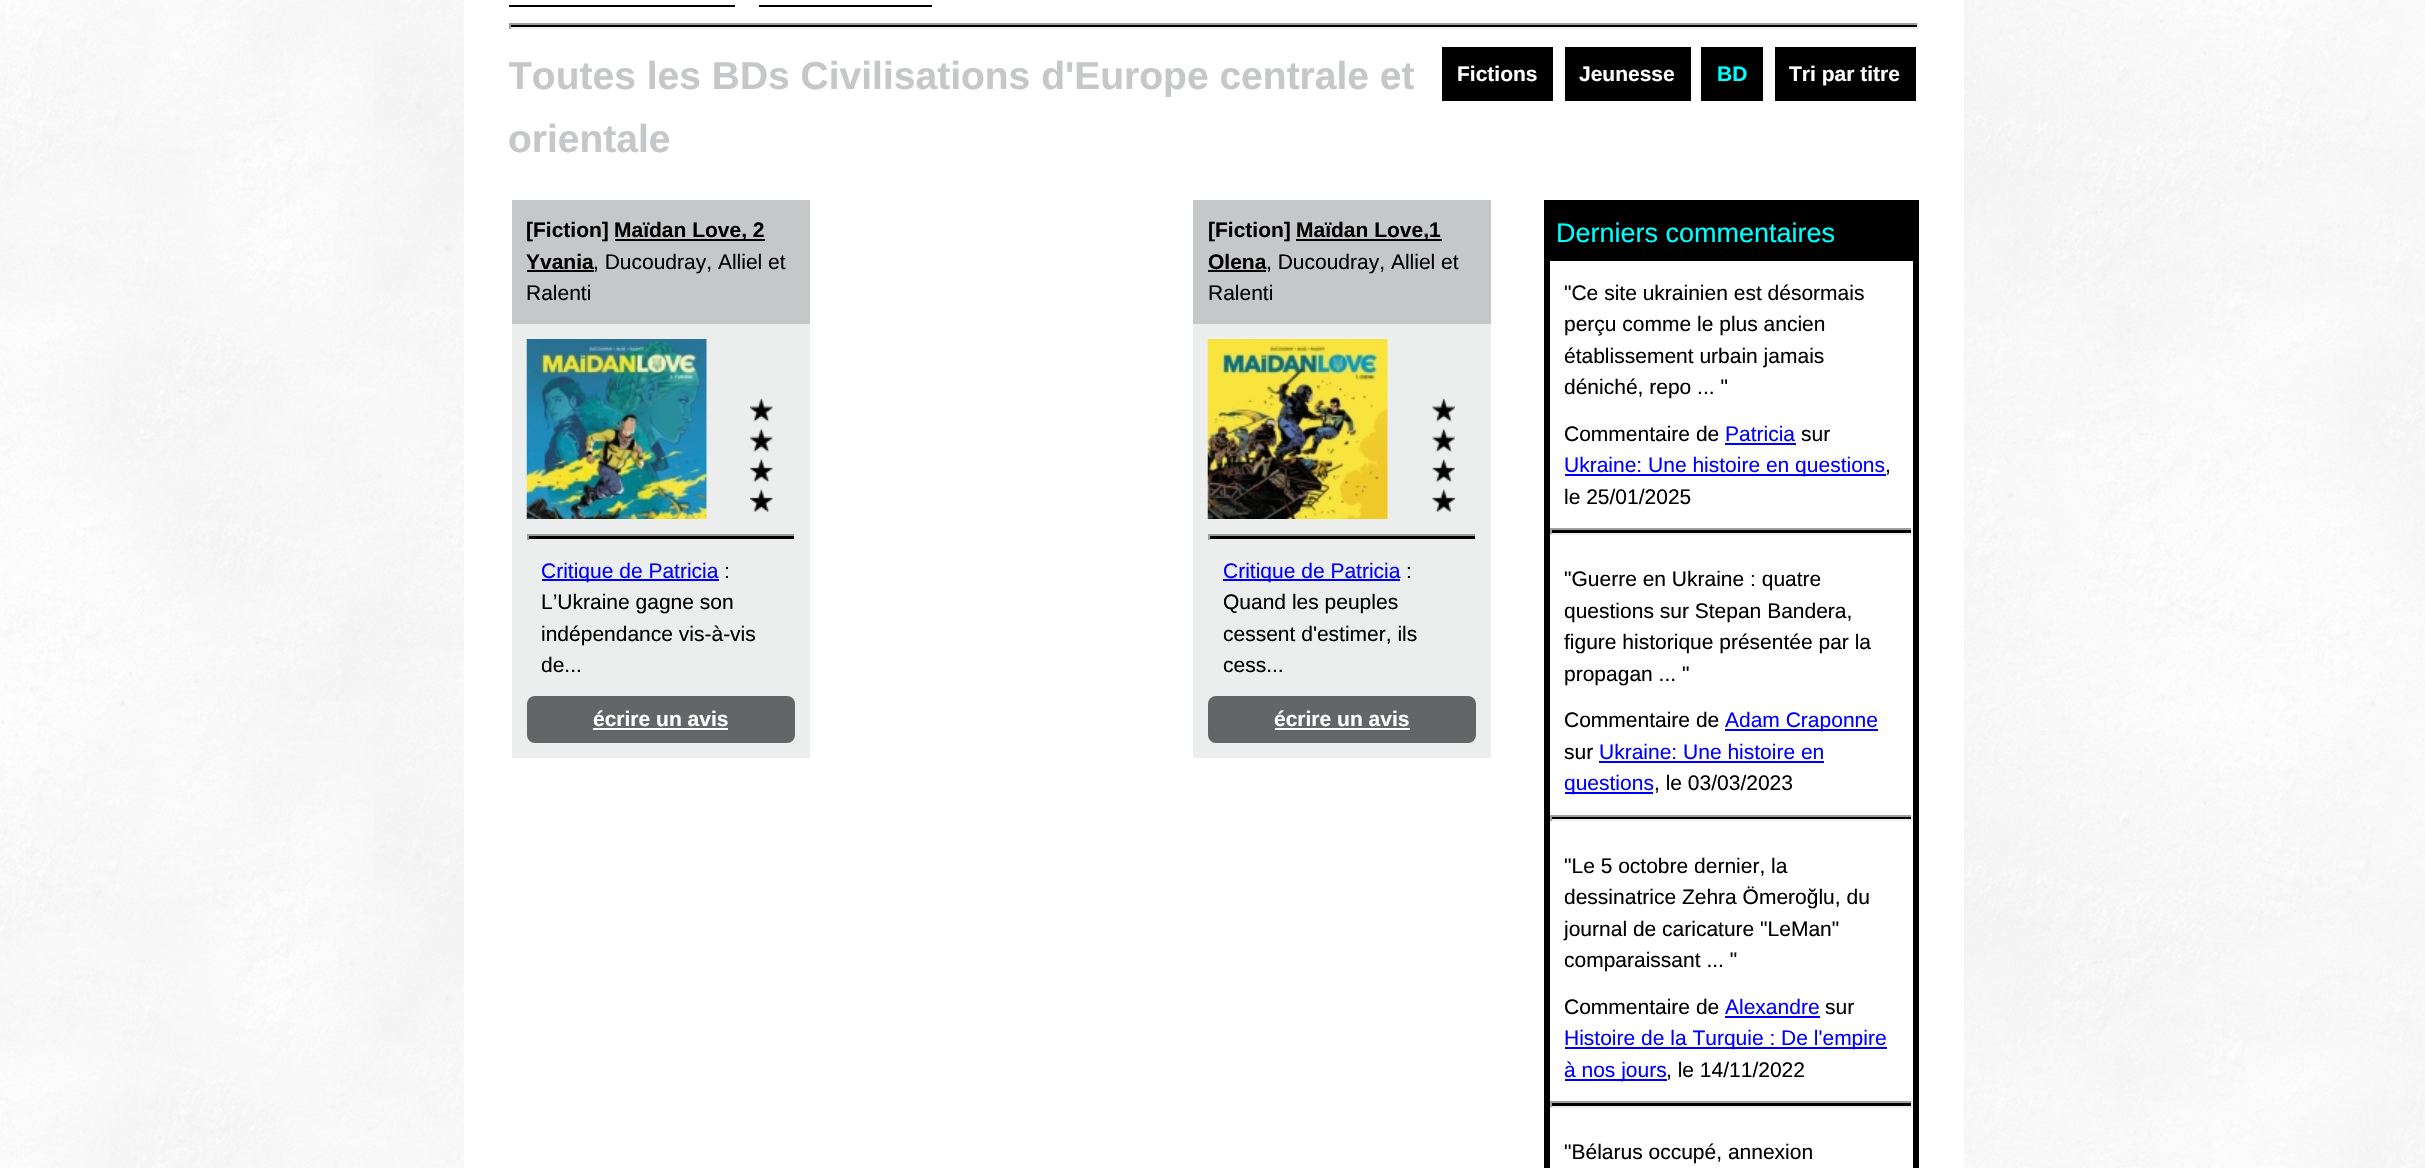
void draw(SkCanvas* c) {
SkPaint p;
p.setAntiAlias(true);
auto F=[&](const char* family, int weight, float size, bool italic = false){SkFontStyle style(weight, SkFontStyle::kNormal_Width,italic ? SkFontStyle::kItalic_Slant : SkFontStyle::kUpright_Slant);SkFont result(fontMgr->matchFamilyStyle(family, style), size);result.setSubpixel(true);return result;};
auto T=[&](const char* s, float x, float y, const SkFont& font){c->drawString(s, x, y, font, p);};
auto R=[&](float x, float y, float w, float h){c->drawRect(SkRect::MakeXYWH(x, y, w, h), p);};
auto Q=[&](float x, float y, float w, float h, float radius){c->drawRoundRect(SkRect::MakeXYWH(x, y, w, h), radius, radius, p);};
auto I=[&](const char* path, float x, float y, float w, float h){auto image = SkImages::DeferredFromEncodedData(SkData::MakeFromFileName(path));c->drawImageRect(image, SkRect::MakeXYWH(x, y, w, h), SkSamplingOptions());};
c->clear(0xffffffff);
I("1.png",0,0,2425,1168);
p.setColor(0xffffffff);
R(464,0,1500,1168);
p.setColor(0xff000000);
R(509,5,226,2);
R(759,5,173,2);
R(509,25,1410,2);
p.setColor(0xff9f9f9f);
R(509,23,1410,2);
p.setColor(0xffeeeeee);
R(1917,23,2,6);
R(509,27,1410,2);
p.setColor(0xff9f9f9f);
R(509,23,2,6);
c->save();
c->clipRect(SkRect::MakeXYWH(509,0,1410,185));
auto f1 = F("Liberation Sans",700,39);
p.setColor(0xffc6c7c8);
T("Toutes les BDs Civilisations d'Europe centrale et",508,89,f1);
c->restore();
T("orientale",508,152,f1);
p.setColor(0xff000000);
R(1442,47,111,54);
auto f2 = F("Liberation Sans",700,21);
p.setColor(0xffffffff);
T("Fictions",1457,81,f2);
p.setColor(0xff000000);
R(1565,47,126,54);
p.setColor(0xffffffff);
T("Jeunesse",1579,81,f2);
p.setColor(0xff000000);
R(1701,47,62,54);
p.setColor(0xff00ffff);
T("BD",1717,81,f2);
p.setColor(0xff000000);
R(1775,47,141,54);
p.setColor(0xffffffff);
T("Tri par titre",1789,81,f2);
p.setColor(0xffeceded);
R(512,324,298,434);
p.setColor(0xffc6c7c8);
R(512,200,298,124);
p.setColor(0xff000000);
T("[Fiction]",526,237,f2);
R(615,239,150,2);
T("Maïdan Love, 2",614,237,f2);
T("Yvania",526,269,f2);
R(527,270,67,2);
auto f3 = F("Liberation Sans",400,21);
T(", Ducoudray, Alliel et",593,269,f3);
T("Ralenti",526,300,f3);
I("2.png",526,339,181,180);
I("3.png",750,398,23,114);
R(527,536,268,3);
p.setColor(0xff9f9f9f);
R(527,534,268,2);
p.setColor(0xffeeeeee);
R(794,534,1,6);
p.setColor(0xff9f9f9f);
R(527,534,2,6);
p.setColor(0xff0000ff);
R(542,579,177,2);
T("Critique de Patricia",541,578,f3);
p.setColor(0xff000000);
T(":",724,578,f3);
T("L’Ukraine gagne son",541,609,f3);
T("indépendance vis-à-vis",541,641,f3);
T("de...",541,672,f3);
p.setColor(0xff646567);
Q(527,696,268,47,8);
p.setColor(0xffffffff);
T("écrire un avis",593,726,f2);
R(593,728,135,2);
p.setColor(0xffeceded);
R(1193,324,298,434);
p.setColor(0xffc6c7c8);
R(1193,200,298,124);
p.setColor(0xff000000);
T("[Fiction]",1208,237,f2);
R(1296,239,146,2);
T("Maïdan Love,1",1296,237,f2);
T("Olena",1208,269,f2);
R(1208,270,58,2);
T(", Ducoudray, Alliel et",1266,269,f3);
T("Ralenti",1208,300,f3);
I("4.png",1207,339,181,180);
I("5.png",1432,398,23,114);
R(1208,536,268,3);
p.setColor(0xff9f9f9f);
R(1208,534,268,2);
p.setColor(0xffeeeeee);
R(1475,534,1,6);
p.setColor(0xff9f9f9f);
R(1208,534,2,6);
p.setColor(0xff0000ff);
R(1223,579,177,2);
T("Critique de Patricia",1223,578,f3);
p.setColor(0xff000000);
T(":",1406,578,f3);
T("Quand les peuples",1223,609,f3);
T("cessent d'estimer, ils",1223,641,f3);
T("cess...",1223,672,f3);
p.setColor(0xff646567);
Q(1208,696,268,47,8);
p.setColor(0xffffffff);
T("écrire un avis",1274,726,f2);
R(1275,728,135,2);
p.setStroke(true);
p.setStrokeWidth(6);
p.setColor(0xff000000);
c->drawRect(SkRect::MakeXYWH(1547,203,369,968),p);
p.setStroke(false);
R(1550,206,363,55);
auto f4 = F("Liberation Sans",400,27);
p.setColor(0xff00ffff);
T("Derniers commentaires",1556,242,f4);
p.setColor(0xff000000);
T("\"Ce site ukrainien est désormais",1564,300,f3);
T("perçu comme le plus ancien",1564,331,f3);
T("établissement urbain jamais",1564,363,f3);
T("déniché, repo ... \"",1564,394,f3);
T("Commentaire de",1564,441,f3);
p.setColor(0xff0000ff);
T("Patricia",1725,441,f3);
R(1725,443,71,2);
p.setColor(0xff000000);
T("sur",1801,441,f3);
p.setColor(0xff0000ff);
R(1565,474,321,2);
T("Ukraine: Une histoire en questions",1564,472,f3);
p.setColor(0xff000000);
T(",",1885,472,f3);
T("le 25/01/2025",1564,504,f3);
R(1550,530,363,3);
p.setColor(0xff9f9f9f);
R(1550,528,363,2);
p.setColor(0xffeeeeee);
R(1911,528,2,6);
R(1550,533,363,2);
p.setColor(0xff9f9f9f);
R(1550,528,2,6);
p.setColor(0xff000000);
T("\"Guerre en Ukraine : quatre",1564,586,f3);
T("questions sur Stepan Bandera,",1564,618,f3);
T("figure historique présentée par la",1564,649,f3);
T("propagan ... \"",1564,681,f3);
T("Commentaire de",1564,727,f3);
p.setColor(0xff0000ff);
R(1725,729,153,2);
T("Adam Craponne",1725,727,f3);
p.setColor(0xff000000);
T("sur",1564,759,f3);
p.setColor(0xff0000ff);
T("Ukraine: Une histoire en",1599,759,f3);
R(1599,761,225,2);
R(1565,792,88,2);
T("questions",1564,790,f3);
p.setColor(0xff000000);
T(", le 03/03/2023",1654,790,f3);
R(1550,817,363,2);
p.setColor(0xff9f9f9f);
R(1550,815,363,2);
p.setColor(0xffeeeeee);
R(1911,815,2,6);
R(1550,819,363,2);
p.setColor(0xff9f9f9f);
R(1550,815,2,6);
p.setColor(0xff000000);
T("\"Le 5 octobre dernier, la",1564,873,f3);
T("dessinatrice Zehra Ömeroğlu, du",1564,904,f3);
T("journal de caricature \"LeMan\"",1564,936,f3);
T("comparaissant ... \"",1564,967,f3);
T("Commentaire de",1564,1014,f3);
p.setColor(0xff0000ff);
T("Alexandre",1725,1014,f3);
R(1725,1016,95,2);
p.setColor(0xff000000);
T("sur",1825,1014,f3);
p.setColor(0xff0000ff);
R(1565,1047,322,2);
T("Histoire de la Turquie : De l'empire",1564,1045,f3);
R(1565,1079,102,2);
T("à nos jours",1564,1077,f3);
p.setColor(0xff000000);
T(", le 14/11/2022",1666,1077,f3);
R(1550,1103,363,3);
p.setColor(0xff9f9f9f);
R(1550,1101,363,2);
p.setColor(0xffeeeeee);
R(1911,1101,2,6);
R(1550,1106,363,2);
p.setColor(0xff9f9f9f);
R(1550,1101,2,6);
p.setColor(0xff000000);
T("\"Bélarus occupé, annexion",1564,1159,f3);
}
